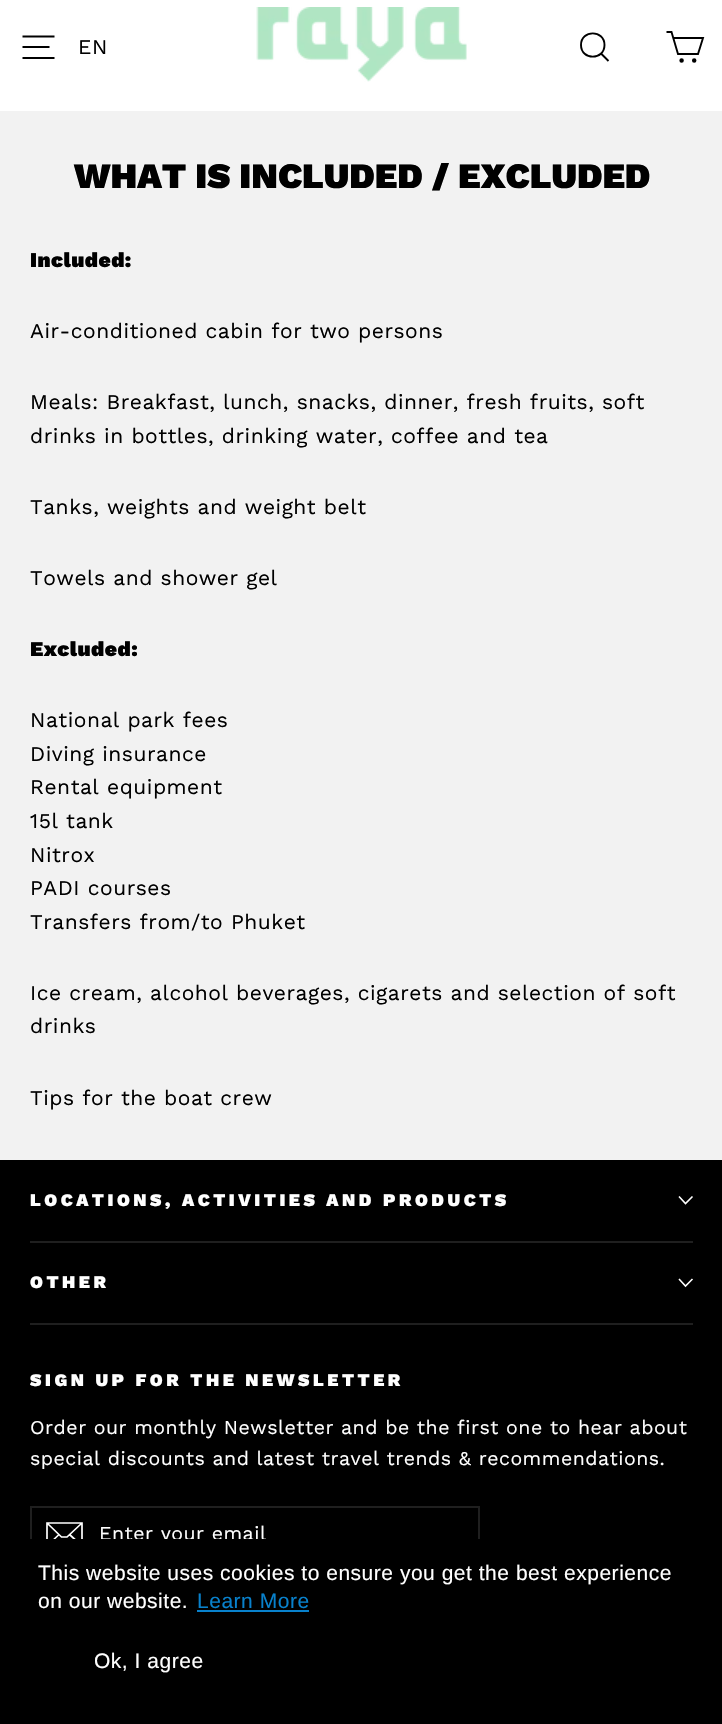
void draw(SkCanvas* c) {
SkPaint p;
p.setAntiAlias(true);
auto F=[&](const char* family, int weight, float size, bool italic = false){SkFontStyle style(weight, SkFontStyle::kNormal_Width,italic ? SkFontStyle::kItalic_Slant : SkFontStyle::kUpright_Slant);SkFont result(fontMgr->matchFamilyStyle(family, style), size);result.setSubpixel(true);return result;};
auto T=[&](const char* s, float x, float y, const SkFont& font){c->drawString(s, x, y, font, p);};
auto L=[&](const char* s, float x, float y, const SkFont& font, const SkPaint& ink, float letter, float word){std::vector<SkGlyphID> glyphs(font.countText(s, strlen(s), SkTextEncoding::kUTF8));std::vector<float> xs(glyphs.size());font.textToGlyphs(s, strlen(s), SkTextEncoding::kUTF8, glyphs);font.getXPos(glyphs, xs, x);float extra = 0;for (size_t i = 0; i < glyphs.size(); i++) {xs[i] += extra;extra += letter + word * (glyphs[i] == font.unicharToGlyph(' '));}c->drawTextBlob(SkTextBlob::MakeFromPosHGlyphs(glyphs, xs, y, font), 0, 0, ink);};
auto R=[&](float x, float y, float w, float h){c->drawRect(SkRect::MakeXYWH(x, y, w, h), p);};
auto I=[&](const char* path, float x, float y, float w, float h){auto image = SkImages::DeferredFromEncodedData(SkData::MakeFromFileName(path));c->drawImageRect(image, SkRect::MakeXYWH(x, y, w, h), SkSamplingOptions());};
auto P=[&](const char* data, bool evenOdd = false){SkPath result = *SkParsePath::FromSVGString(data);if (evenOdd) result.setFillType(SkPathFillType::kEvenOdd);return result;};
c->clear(0xfff2f2f2);
p.setColor(0xffffffff);
R(0,0,722,111);
p.setStroke(true);
p.setStrokeWidth(1.9);
p.setColor(0xff000000);
c->drawPath(P("M22.5 36.5h32m-32 10.5h27m-27 11h32"),p);
auto f1 = F("Work Sans",400,21);
p.setStroke(false);
L("EN",78,54,f1,p,.52,0);
I("1.png",256,7,211,75);
p.setStroke(true);
c->drawPath(P("M604.5 45c0 15.5-23.5 15.5-23.5 0c0-15.5 23.5-15.5 23.5 0zm4 16l-7.5-7.5"),p);
c->drawPath(P("M673.5 38h29.5l-5 16h-20l-6.5-22h-5"),p);
p.setStroke(false);
c->drawCircle(681.6,60.5,1.3,p);
p.setStroke(true);
c->drawCircle(681.6,60.5,1.3,p);
p.setStroke(false);
c->drawCircle(694.2,60.5,1.3,p);
p.setStroke(true);
c->drawCircle(694.2,60.5,1.3,p);
auto f2 = F("Work Sans",900,35.75);
p.setStroke(false);
T("WHAT IS INCLUDED / EXCLUDED",74,188,f2);
auto f3 = F("Work Sans",900,21);
L("Included:",30,267,f3,p,.52,0);
L("Air-conditioned cabin for two persons",30,338,f1,p,.52,0);
L("Meals: Breakfast, lunch, snacks, dinner, fresh fruits, soft",30,409,f1,p,.52,0);
L("drinks in bottles, drinking water, coffee and tea",30,443,f1,p,.52,0);
L("Tanks, weights and weight belt",30,514,f1,p,.52,0);
L("Towels and shower gel",30,585,f1,p,.52,0);
L("Excluded:",30,656,f3,p,.52,0);
L("National park fees",30,727,f1,p,.52,0);
L("Diving insurance",30,761,f1,p,.52,0);
L("Rental equipment",30,794,f1,p,.52,0);
L("15l tank",30,828,f1,p,.52,0);
L("Nitrox",30,862,f1,p,.52,0);
L("PADI courses",30,895,f1,p,.52,0);
L("Transfers from/to Phuket",30,929,f1,p,.52,0);
L("Ice cream, alcohol beverages, cigarets and selection of soft",30,1000,f1,p,.52,0);
L("drinks",30,1033,f1,p,.52,0);
L("Tips for the boat crew",30,1105,f1,p,.52,0);
R(0,1160,722,564);
auto f4 = F("Work Sans",900,17.65);
p.setColor(0xffffffff);
L("LOCATIONS, ACTIVITIES AND PRODUCTS",30,1206,f4,p,3.55,0);
p.setStroke(true);
p.setStrokeWidth(1.6);
c->drawPath(P("M679 1196.5l6.5 7l7-7"),p);
p.setStroke(false);
p.setColor(0xff1f1f1f);
R(30,1241,663,2);
p.setColor(0xffffffff);
L("OTHER",30,1288,f4,p,3.55,0);
p.setStroke(true);
c->drawPath(P("M679 1279l6.5 7l7-7"),p);
p.setStroke(false);
p.setColor(0xff1f1f1f);
R(30,1323,663,2);
p.setColor(0xffffffff);
L("SIGN UP FOR THE NEWSLETTER",30,1386,f4,p,3.55,0);
auto f5 = F("Work Sans",400,19.55);
L("Order our monthly Newsletter and be the first one to hear about",30,1434,f5,p,.5,0);
L("special discounts and latest travel trends & recommendations.",30,1465,f5,p,.5,0);
p.setStroke(true);
p.setStrokeWidth(2);
p.setColor(0xff1f1f1f);
c->drawRect(SkRect::MakeXYWH(31,1507,448,57),p);
p.setStrokeWidth(1.7);
p.setColor(0xffffffff);
c->drawPath(P("M82 1546h-35v-23h35zm-35-23l14.5 14h5.5l15-14m-23 11.5l-11.5 11m34 0l-12-11"),p);
p.setStroke(false);
L("Enter your email",99,1540,f5,p,.5,0);
p.setColor(0xff000000);
R(30,1539,450,26);
auto f6 = F("Liberation Sans",400,21);
p.setColor(0xffffffff);
L("This website uses cookies to ensure you get the best experience",38,1580,f6,p,.52,0);
L("on our website.",38,1608,f6,p,.52,0);
p.setColor(0xff0881cc);
L("Learn More",197,1608,f6,p,.52,0);
R(197,1610,112,2);
p.setColor(0xffffffff);
L("Ok, I agree",94,1668,f6,p,.52,0);
}
